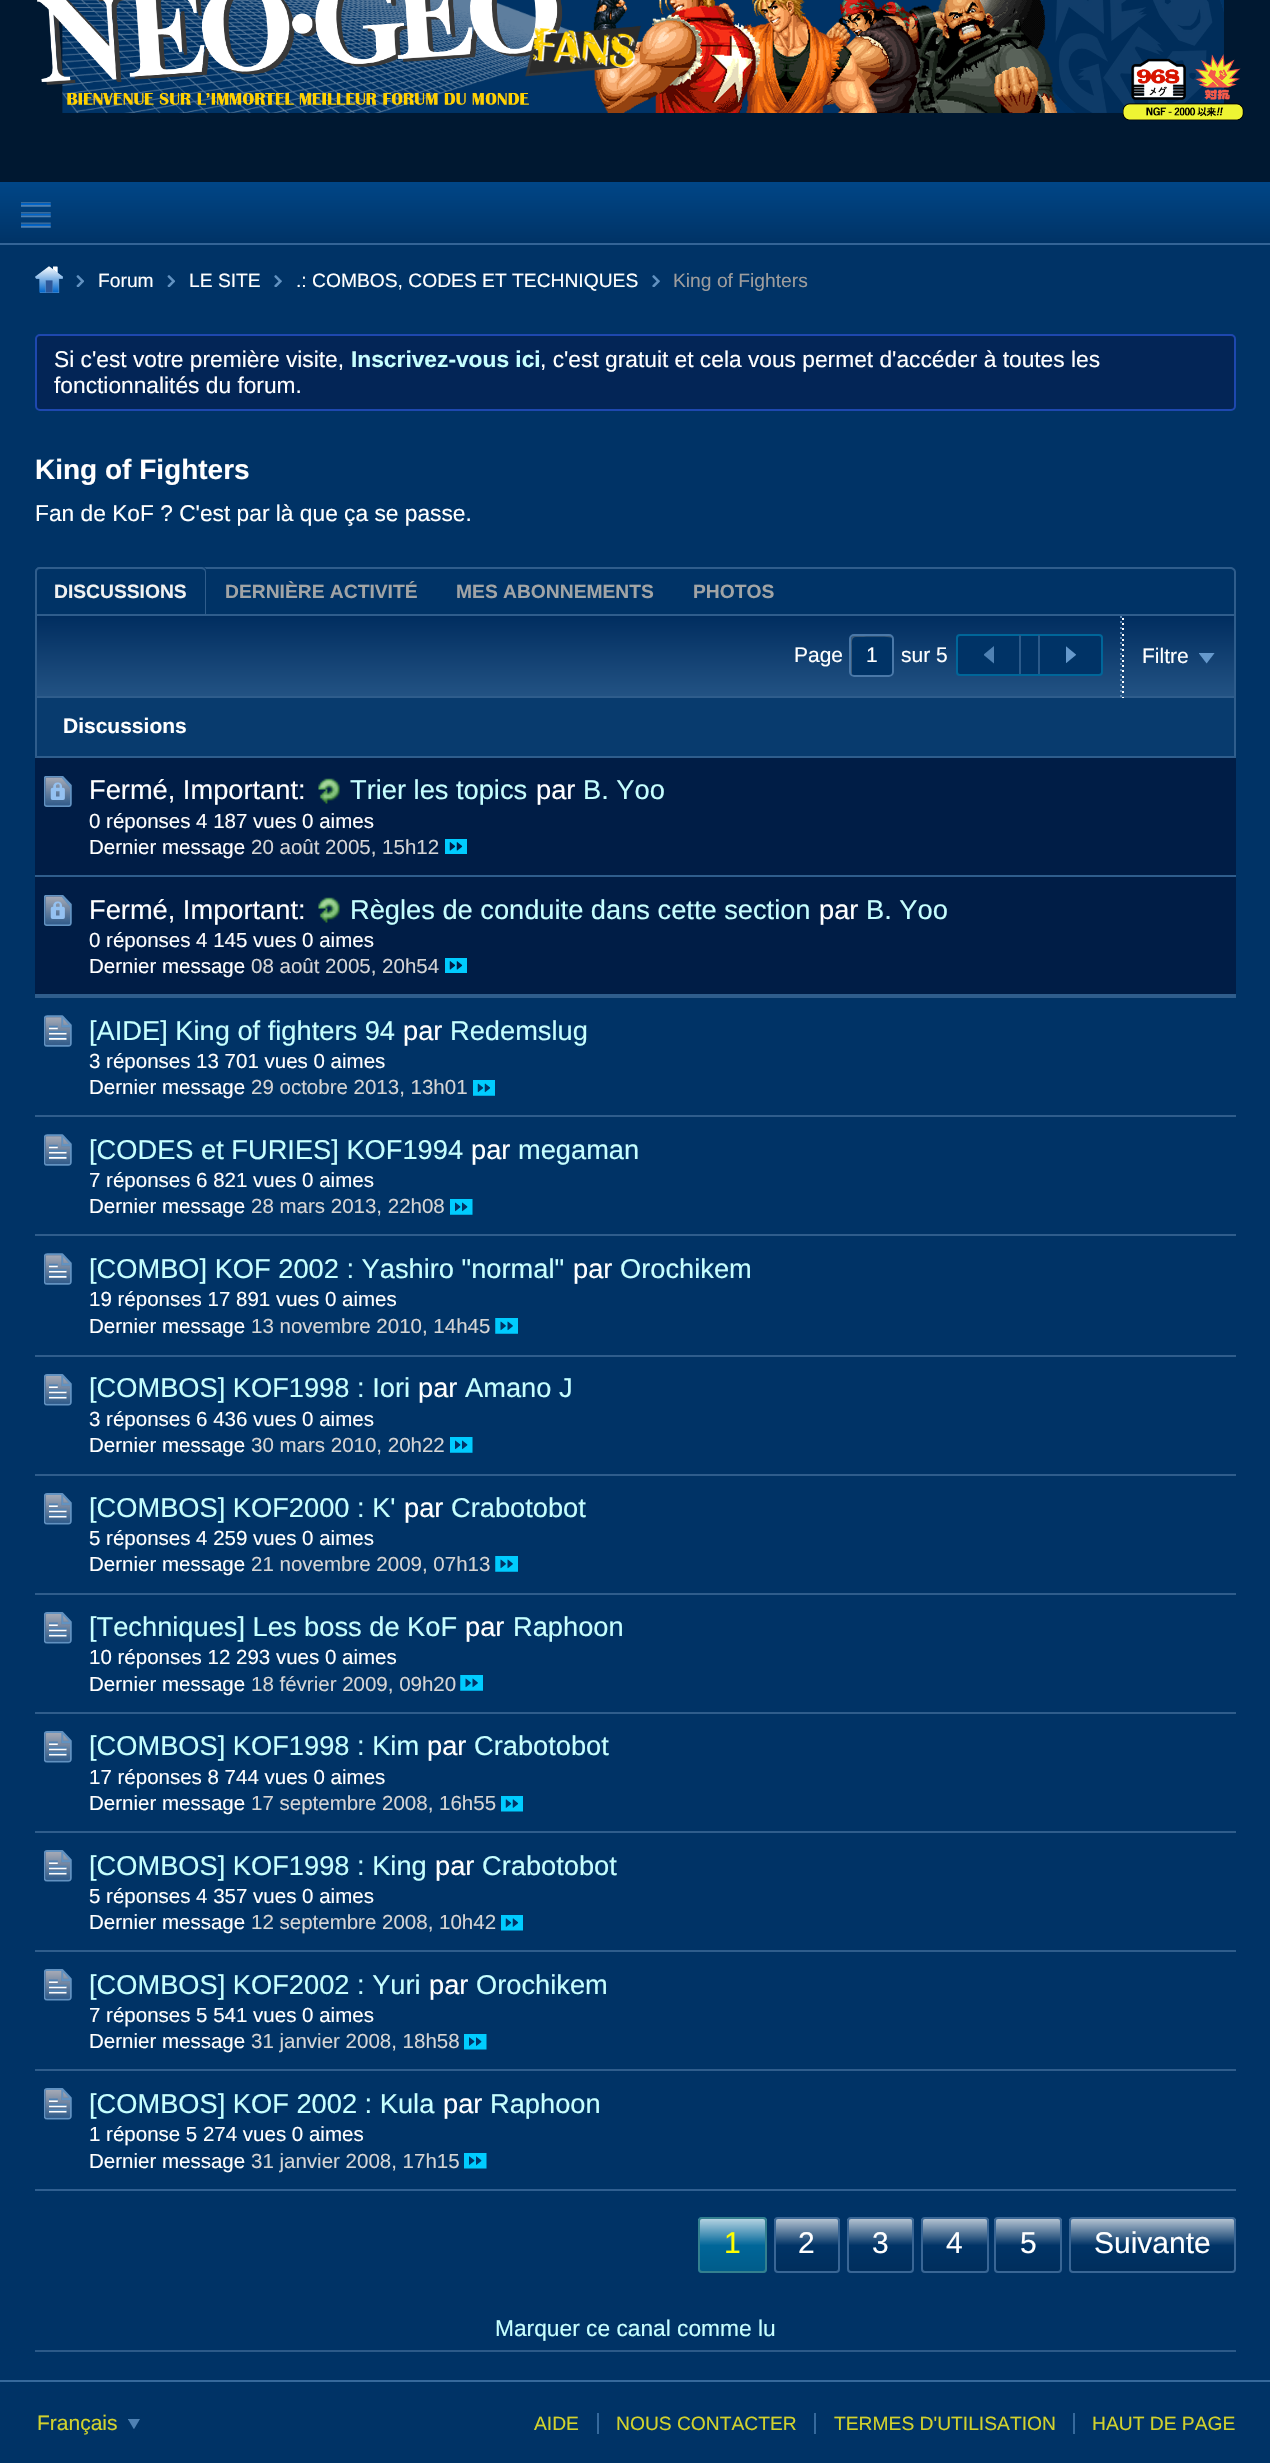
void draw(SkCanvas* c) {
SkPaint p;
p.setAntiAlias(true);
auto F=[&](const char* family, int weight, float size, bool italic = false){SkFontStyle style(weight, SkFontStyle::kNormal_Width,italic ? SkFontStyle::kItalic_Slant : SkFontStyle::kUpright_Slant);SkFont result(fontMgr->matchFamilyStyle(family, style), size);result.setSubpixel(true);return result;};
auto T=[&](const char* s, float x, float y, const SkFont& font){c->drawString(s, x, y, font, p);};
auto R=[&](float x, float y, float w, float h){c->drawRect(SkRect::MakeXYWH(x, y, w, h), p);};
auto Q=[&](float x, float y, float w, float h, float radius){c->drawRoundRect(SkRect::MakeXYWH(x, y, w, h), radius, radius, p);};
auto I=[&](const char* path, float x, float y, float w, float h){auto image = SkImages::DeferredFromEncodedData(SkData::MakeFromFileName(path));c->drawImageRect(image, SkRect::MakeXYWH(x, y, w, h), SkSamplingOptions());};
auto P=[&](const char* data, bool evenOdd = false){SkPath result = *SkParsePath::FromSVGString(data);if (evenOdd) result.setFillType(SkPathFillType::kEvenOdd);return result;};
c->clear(0xff001831);
I("1.png",37,0,1207,121);
{
const SkColor colors[] = {0xff004687,0xff003366};
const float stops[] = {0,1};
const SkPoint ends[] = {{635,182}, {635,243}};
p.setShader(SkGradientShader::MakeLinear(ends, colors, stops, 2, SkTileMode::kClamp));
p.setAlpha(255);
}
R(0,182,1270,61);
p.setShader(nullptr);
p.setColor(0xff346496);
R(0,243,1270,2);
I("2.png",21,202,30,26);
p.setColor(0xff003366);
R(0,245,1270,2135);
I("3.png",35,266,28,27);
I("4.png",76,275,8,12);
auto f1 = F("Liberation Sans",400,19.25);
p.setColor(0xffffffff);
T("Forum",98,287,f1);
I("4.png",167,275,8,12);
T("LE SITE",189,287,f1);
I("5.png",274,275,8,12);
T(".: COMBOS, CODES ET TECHNIQUES",296,287,f1);
I("5.png",652,275,8,12);
p.setColor(0xff9e9d9d);
T("King of Fighters",673,287,f1);
p.setColor(0xff032556);
c->drawRoundRect(SkRect::MakeXYWH(36,335,1199,75),4,4,p);
p.setStroke(true);
p.setStrokeWidth(2);
p.setColor(0xff1e48af);
c->drawRoundRect(SkRect::MakeXYWH(36,335,1199,75),4,4,p);
auto f2 = F("Liberation Sans",400,22.75);
p.setStroke(false);
p.setColor(0xffffffff);
T("Si c'est votre première visite,",54,367,f2);
auto f3 = F("Liberation Sans",700,22.75);
p.setColor(0xffc6ffff);
T("Inscrivez-vous ici",351,367,f3);
p.setColor(0xffffffff);
T(", c'est gratuit et cela vous permet d'accéder à toutes les",540,367,f2);
T("fonctionnalités du forum.",54,393,f2);
auto f4 = F("Liberation Sans",700,28);
T("King of Fighters",35,479,f4);
T("Fan de KoF ? C'est par là que ça se passe.",35,521,f2);
p.setColor(0xff2f5d8c);
c->drawPath(P("M40 567h1190c3 0 6 2 6 5v42h-1201v-42c0-3 2-5 5-5zm0 2h1190c2 0 4 1 4 3v42h-1197v-42c0-2 1-3 3-3z",true),p);
p.setColor(0xff003366);
c->drawPath(P("M42 569h1187c3 0 5 2 5 5v40h-1192c-3 0-5-2-5-5v-35c0-3 2-5 5-5z"),p);
c->drawPath(P("M40 567h162c3 0 5 2 5 5v42h-172v-42c0-3 2-5 5-5z"),p);
p.setColor(0xff2f5d8c);
c->drawPath(P("M40 567h161c3 0 5 2 5 5v42h-171v-42c0-3 2-5 5-5zm0 2h161c2 0 4 1 4 3v42h-168v-42c0-2 1-3 3-3z",true),p);
auto f5 = F("Liberation Sans",700,19.25);
p.setColor(0xfff0f1f1);
T("DISCUSSIONS",54,598,f5);
p.setColor(0xffa1a4a5);
T("DERNIÈRE ACTIVITÉ",225,598,f5);
T("MES ABONNEMENTS",456,598,f5);
T("PHOTOS",693,598,f5);
{
const SkColor colors[] = {0xff002d5f,0xff235384};
const float stops[] = {0,1};
const SkPoint ends[] = {{635,616}, {635,697}};
p.setShader(SkGradientShader::MakeLinear(ends, colors, stops, 2, SkTileMode::kClamp));
p.setAlpha(255);
}
R(37,616,1197,80);
p.setStroke(true);
p.setShader(nullptr);
p.setColor(0xff2f5d8c);
c->drawRect(SkRect::MakeXYWH(36,615,1199,82),p);
auto f6 = F("Liberation Sans",400,21);
p.setStroke(false);
p.setColor(0xffffffff);
T("Page",794,662,f6);
p.setColor(0xff003366);
Q(849,634,45,43,5);
p.setColor(0xff3c5b79);
c->drawPath(P("M856 637c5 0 35-1 37 1c-1-2-2-3-4-3h-34c-2 0-4 2-4 4v33c0 1 0 2 1 3v-29c0-3-1-9 4-9z"),p);
p.setStroke(true);
p.setColor(0xff4a78a8);
c->drawRoundRect(SkRect::MakeXYWH(850,635,43,41),4,4,p);
p.setStroke(false);
p.setColor(0xffffffff);
T("1",866,662,f6);
T("sur 5",901,662,f6);
p.setColor(0xff003366);
c->drawRoundRect(SkRect::MakeXYWH(957,635,145,40),3,3,p);
p.setStroke(true);
p.setColor(0xff006699);
c->drawRoundRect(SkRect::MakeXYWH(957,635,145,40),3,3,p);
p.setStroke(false);
p.setColor(0xff2b5a8a);
R(1019,635,2,39);
I("6.png",984,646,10,18);
R(1038,635,2,39);
I("7.png",1066,646,10,17);
p.setColor(0xff5d88b5);
R(1120,616,2,2);
R(1120,621,2,2);
R(1120,627,2,2);
R(1120,632,2,2);
R(1120,637,2,2);
R(1120,642,2,2);
R(1120,648,2,2);
R(1120,653,2,2);
R(1120,658,2,2);
R(1120,663,2,2);
R(1120,669,2,2);
R(1120,674,2,2);
R(1120,679,2,2);
R(1120,684,2,2);
R(1120,690,2,2);
R(1120,695,2,2);
p.setColor(0xffffffff);
R(1122,618,2,2);
R(1122,623,2,2);
R(1122,628,2,2);
R(1122,634,2,2);
R(1122,639,2,2);
R(1122,644,2,2);
R(1122,649,2,2);
R(1122,655,2,2);
R(1122,660,2,2);
R(1122,665,2,2);
R(1122,670,2,2);
R(1122,676,2,2);
R(1122,681,2,2);
R(1122,686,2,2);
R(1122,691,2,2);
R(1122,697,2,1);
T("Filtre",1142,663,f6);
I("8.png",1199,653,16,11);
p.setColor(0xff305f90);
R(35,2189,1201,2);
p.setColor(0xff083b6e);
R(37,698,1197,58);
p.setColor(0xff2f5d8c);
R(1234,698,2,58);
R(35,698,2,58);
auto f7 = F("Liberation Sans",700,21);
p.setColor(0xffffffff);
T("Discussions",63,733,f7);
p.setColor(0xff001d46);
R(35,758,1201,117);
I("9.png",44,776,28,31);
p.setColor(0xff2f5d8c);
R(35,756,1201,2);
auto f8 = F("Liberation Sans",400,27.25);
p.setColor(0xffffffff);
T("Fermé, Important:",89,799,f8);
I("10.png",318,778,22,26);
p.setColor(0xffc6ffff);
T("Trier les topics",350,799,f8);
p.setColor(0xffffffff);
T("par",536,799,f8);
p.setColor(0xffc6ffff);
T("B. Yoo",583,799,f8);
auto f9 = F("Liberation Sans",400,20.5);
p.setColor(0xffffffff);
T("0 réponses 4 187 vues 0 aimes",89,828,f9);
T("Dernier message",89,854,f9);
p.setColor(0xffd5d5d5);
T("20 août 2005, 15h12",251,854,f9);
I("11.png",445,839,22,15);
p.setColor(0xff001d46);
R(35,877,1201,117);
I("9.png",44,895,28,31);
p.setColor(0xff2f5d8c);
R(35,875,1201,2);
p.setColor(0xffffffff);
T("Fermé, Important:",89,919,f8);
I("10.png",318,897,22,26);
p.setColor(0xffc6ffff);
T("Règles de conduite dans cette section",350,919,f8);
p.setColor(0xffffffff);
T("par",819,919,f8);
p.setColor(0xffc6ffff);
T("B. Yoo",866,919,f8);
p.setColor(0xffffffff);
T("0 réponses 4 145 vues 0 aimes",89,947,f9);
T("Dernier message",89,973,f9);
p.setColor(0xffd5d5d5);
T("08 août 2005, 20h54",251,973,f9);
I("11.png",445,958,22,15);
I("12.png",44,1015,28,32);
p.setColor(0xff2f5d8c);
R(35,994,1201,4);
p.setColor(0xffc6ffff);
T("[AIDE] King of fighters 94",89,1040,f8);
p.setColor(0xffffffff);
T("par",403,1040,f8);
p.setColor(0xffc6ffff);
T("Redemslug",450,1040,f8);
p.setColor(0xffffffff);
T("3 réponses 13 701 vues 0 aimes",89,1068,f9);
T("Dernier message",89,1094,f9);
p.setColor(0xffd5d5d5);
T("29 octobre 2013, 13h01",251,1094,f9);
I("13.png",473,1080,22,16);
I("14.png",44,1134,28,32);
p.setColor(0xff2f5d8c);
R(35,1115,1201,2);
p.setColor(0xffc6ffff);
T("[CODES et FURIES] KOF1994",89,1159,f8);
p.setColor(0xffffffff);
T("par",471,1159,f8);
p.setColor(0xffc6ffff);
T("megaman",518,1159,f8);
p.setColor(0xffffffff);
T("7 réponses 6 821 vues 0 aimes",89,1187,f9);
T("Dernier message",89,1213,f9);
p.setColor(0xffd5d5d5);
T("28 mars 2013, 22h08",251,1213,f9);
I("15.png",450,1199,23,16);
I("12.png",44,1253,28,32);
p.setColor(0xff2f5d8c);
R(35,1234,1201,2);
p.setColor(0xffc6ffff);
T("[COMBO] KOF 2002 : Yashiro \"normal\"",89,1278,f8);
p.setColor(0xffffffff);
T("par",573,1278,f8);
p.setColor(0xffc6ffff);
T("Orochikem",620,1278,f8);
p.setColor(0xffffffff);
T("19 réponses 17 891 vues 0 aimes",89,1306,f9);
T("Dernier message",89,1333,f9);
p.setColor(0xffd5d5d5);
T("13 novembre 2010, 14h45",251,1333,f9);
I("16.png",495,1318,23,16);
I("17.png",44,1374,28,32);
p.setColor(0xff2f5d8c);
R(35,1355,1201,2);
p.setColor(0xffc6ffff);
T("[COMBOS] KOF1998 : Iori",89,1397,f8);
p.setColor(0xffffffff);
T("par",418,1397,f8);
p.setColor(0xffc6ffff);
T("Amano J",465,1397,f8);
p.setColor(0xffffffff);
T("3 réponses 6 436 vues 0 aimes",89,1426,f9);
T("Dernier message",89,1452,f9);
p.setColor(0xffd5d5d5);
T("30 mars 2010, 20h22",251,1452,f9);
I("15.png",450,1437,23,16);
I("18.png",44,1493,28,32);
p.setColor(0xff2f5d8c);
R(35,1474,1201,2);
p.setColor(0xffc6ffff);
T("[COMBOS] KOF2000 : K'",89,1517,f8);
p.setColor(0xffffffff);
T("par",404,1517,f8);
p.setColor(0xffc6ffff);
T("Crabotobot",451,1517,f8);
p.setColor(0xffffffff);
T("5 réponses 4 259 vues 0 aimes",89,1545,f9);
T("Dernier message",89,1571,f9);
p.setColor(0xffd5d5d5);
T("21 novembre 2009, 07h13",251,1571,f9);
I("16.png",495,1556,23,16);
I("18.png",44,1612,28,32);
p.setColor(0xff2f5d8c);
R(35,1593,1201,2);
p.setColor(0xffc6ffff);
T("[Techniques] Les boss de KoF",89,1636,f8);
p.setColor(0xffffffff);
T("par",465,1636,f8);
p.setColor(0xffc6ffff);
T("Raphoon",513,1636,f8);
p.setColor(0xffffffff);
T("10 réponses 12 293 vues 0 aimes",89,1664,f9);
T("Dernier message",89,1691,f9);
p.setColor(0xffd5d5d5);
T("18 février 2009, 09h20",251,1691,f9);
I("19.png",460,1675,23,16);
I("18.png",44,1731,28,32);
p.setColor(0xff2f5d8c);
R(35,1712,1201,2);
p.setColor(0xffc6ffff);
T("[COMBOS] KOF1998 : Kim",89,1755,f8);
p.setColor(0xffffffff);
T("par",427,1755,f8);
p.setColor(0xffc6ffff);
T("Crabotobot",474,1755,f8);
p.setColor(0xffffffff);
T("17 réponses 8 744 vues 0 aimes",89,1784,f9);
T("Dernier message",89,1810,f9);
p.setColor(0xffd5d5d5);
T("17 septembre 2008, 16h55",251,1810,f9);
I("20.png",501,1796,22,16);
I("18.png",44,1850,28,32);
p.setColor(0xff2f5d8c);
R(35,1831,1201,2);
p.setColor(0xffc6ffff);
T("[COMBOS] KOF1998 : King",89,1875,f8);
p.setColor(0xffffffff);
T("par",435,1875,f8);
p.setColor(0xffc6ffff);
T("Crabotobot",482,1875,f8);
p.setColor(0xffffffff);
T("5 réponses 4 357 vues 0 aimes",89,1903,f9);
T("Dernier message",89,1929,f9);
p.setColor(0xffd5d5d5);
T("12 septembre 2008, 10h42",251,1929,f9);
I("20.png",501,1915,22,16);
I("18.png",44,1969,28,32);
p.setColor(0xff2f5d8c);
R(35,1950,1201,2);
p.setColor(0xffc6ffff);
T("[COMBOS] KOF2002 : Yuri",89,1994,f8);
p.setColor(0xffffffff);
T("par",429,1994,f8);
p.setColor(0xffc6ffff);
T("Orochikem",476,1994,f8);
p.setColor(0xffffffff);
T("7 réponses 5 541 vues 0 aimes",89,2022,f9);
T("Dernier message",89,2048,f9);
p.setColor(0xffd5d5d5);
T("31 janvier 2008, 18h58",251,2048,f9);
I("21.png",464,2034,23,16);
I("18.png",44,2088,28,32);
p.setColor(0xff2f5d8c);
R(35,2069,1201,2);
p.setColor(0xffc6ffff);
T("[COMBOS] KOF 2002 : Kula",89,2113,f8);
p.setColor(0xffffffff);
T("par",443,2113,f8);
p.setColor(0xffc6ffff);
T("Raphoon",490,2113,f8);
p.setColor(0xffffffff);
T("1 réponse 5 274 vues 0 aimes",89,2141,f9);
T("Dernier message",89,2168,f9);
p.setColor(0xffd5d5d5);
T("31 janvier 2008, 17h15",251,2168,f9);
I("22.png",464,2153,23,16);
p.setColor(0xff006699);
Q(698,2217,69,56,4);
c->save();
c->clipPath(P("M702 2217h61c2 0 4 2 4 4v48c0 2-2 4-4 4h-61c-2 0-4-2-4-4v-48c0-2 2-4 4-4z"),true);
{
const SkColor colors[] = {0x1a000000,0x00000000,0x00ffffff,0xb3ffffff};
const float stops[] = {0,.5,.5,1};
const SkPoint ends[] = {{732,2272}, {732,2219}};
p.setShader(SkGradientShader::MakeLinear(ends, colors, stops, 4, SkTileMode::kClamp));
p.setAlpha(255);
}
R(698,2219,69,53);
c->restore();
p.setStroke(true);
p.setShader(nullptr);
p.setColor(0xff33808f);
c->drawRoundRect(SkRect::MakeXYWH(699,2218,67,54),3,3,p);
auto f10 = F("Liberation Sans",400,30);
p.setStroke(false);
p.setColor(0xffffff00);
T("1",724,2253,f10);
c->save();
c->clipPath(P("M778 2217h58c2 0 4 2 4 4v48c0 2-2 4-4 4h-58c-2 0-4-2-4-4v-48c0-2 2-4 4-4z"),true);
{
const SkColor colors[] = {0xff002e5c,0xff003366,0xffb3c2d1};
const float stops[] = {0,.5,1};
const SkPoint ends[] = {{807,2272}, {807,2219}};
p.setShader(SkGradientShader::MakeLinear(ends, colors, stops, 3, SkTileMode::kClamp));
p.setAlpha(255);
}
R(774,2219,66,53);
c->restore();
p.setStroke(true);
p.setShader(nullptr);
p.setColor(0xff396695);
c->drawRoundRect(SkRect::MakeXYWH(775,2218,64,54),3,3,p);
p.setStroke(false);
p.setColor(0xffffffff);
T("2",798,2253,f10);
c->save();
c->clipPath(P("M851 2217h59c2 0 4 2 4 4v48c0 2-2 4-4 4h-59c-2 0-4-2-4-4v-48c0-2 2-4 4-4z"),true);
{
const SkColor colors[] = {0xff002e5c,0xff003366,0xffb3c2d1};
const float stops[] = {0,.5,1};
const SkPoint ends[] = {{880,2272}, {880,2219}};
p.setShader(SkGradientShader::MakeLinear(ends, colors, stops, 3, SkTileMode::kClamp));
p.setAlpha(255);
}
R(847,2219,67,53);
c->restore();
p.setStroke(true);
p.setShader(nullptr);
p.setColor(0xff396695);
c->drawRoundRect(SkRect::MakeXYWH(848,2218,65,54),3,3,p);
p.setStroke(false);
p.setColor(0xffffffff);
T("3",872,2253,f10);
c->save();
c->clipPath(P("M925 2217h60c2 0 4 2 4 4v48c0 2-2 4-4 4h-60c-2 0-4-2-4-4v-48c0-2 2-4 4-4z"),true);
{
const SkColor colors[] = {0xff002e5c,0xff003366,0xffb3c2d1};
const float stops[] = {0,.5,1};
const SkPoint ends[] = {{955,2272}, {955,2219}};
p.setShader(SkGradientShader::MakeLinear(ends, colors, stops, 3, SkTileMode::kClamp));
p.setAlpha(255);
}
R(921,2219,68,53);
c->restore();
p.setStroke(true);
p.setShader(nullptr);
p.setColor(0xff396695);
c->drawRoundRect(SkRect::MakeXYWH(922,2218,66,54),3,3,p);
p.setStroke(false);
p.setColor(0xffffffff);
T("4",946,2253,f10);
c->save();
c->clipPath(P("M998 2217h60c2 0 4 2 4 4v48c0 2-2 4-4 4h-60c-2 0-4-2-4-4v-48c0-2 2-4 4-4z"),true);
{
const SkColor colors[] = {0xff002e5c,0xff003366,0xffb3c2d1};
const float stops[] = {0,.5,1};
const SkPoint ends[] = {{1028,2272}, {1028,2219}};
p.setShader(SkGradientShader::MakeLinear(ends, colors, stops, 3, SkTileMode::kClamp));
p.setAlpha(255);
}
R(994,2219,68,53);
c->restore();
p.setStroke(true);
p.setShader(nullptr);
p.setColor(0xff396695);
c->drawRoundRect(SkRect::MakeXYWH(995,2218,66,54),3,3,p);
p.setStroke(false);
p.setColor(0xffffffff);
T("5",1020,2253,f10);
c->save();
c->clipPath(P("M1073 2217h159c2 0 4 2 4 4v48c0 2-2 4-4 4h-159c-2 0-4-2-4-4v-48c0-2 2-4 4-4z"),true);
{
const SkColor colors[] = {0xff002e5c,0xff003366,0xffb3c2d1};
const float stops[] = {0,.5,1};
const SkPoint ends[] = {{1152,2272}, {1152,2219}};
p.setShader(SkGradientShader::MakeLinear(ends, colors, stops, 3, SkTileMode::kClamp));
p.setAlpha(255);
}
R(1069,2219,167,53);
c->restore();
p.setStroke(true);
p.setShader(nullptr);
p.setColor(0xff396695);
c->drawRoundRect(SkRect::MakeXYWH(1070,2218,165,54),3,3,p);
p.setStroke(false);
p.setColor(0xffffffff);
T("Suivante",1094,2253,f10);
p.setColor(0xff2c5a89);
R(35,2350,1201,2);
p.setColor(0xffc6ffff);
T("Marquer ce canal comme lu",495,2336,f2);
p.setColor(0xff003366);
R(0,2382,1270,81);
p.setColor(0xff36699c);
R(0,2380,1270,2);
p.setColor(0xffd2d22d);
T("Français",37,2430,f6);
I("23.png",128,2419,12,10);
T("AIDE",534,2430,f1);
T("NOUS CONTACTER",616,2430,f1);
p.setColor(0xff36699c);
R(597,2413,2,21);
p.setColor(0xffd2d22d);
T("TERMES D'UTILISATION",834,2430,f1);
p.setColor(0xff36699c);
R(814,2413,2,21);
p.setColor(0xffd2d22d);
T("HAUT DE PAGE",1092,2430,f1);
p.setColor(0xff36699c);
R(1073,2413,2,21);
}
